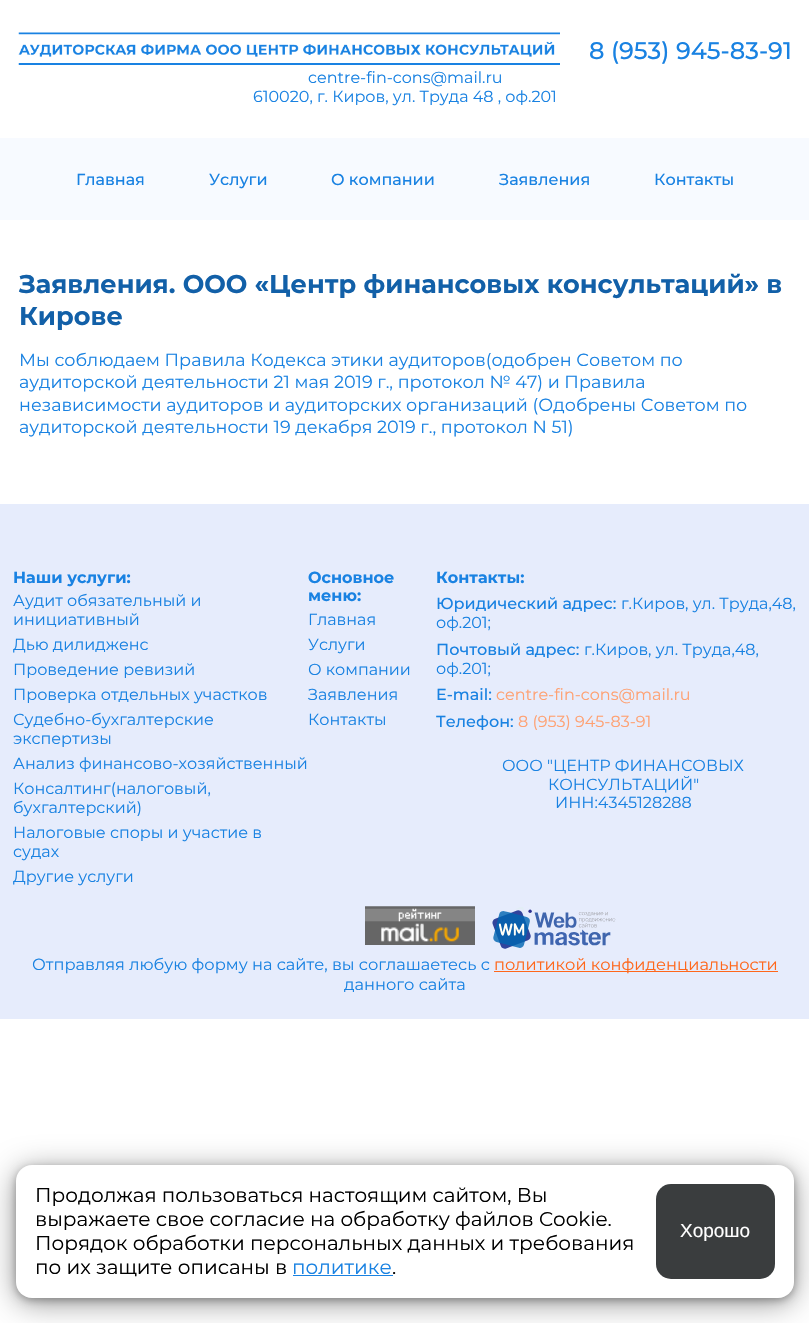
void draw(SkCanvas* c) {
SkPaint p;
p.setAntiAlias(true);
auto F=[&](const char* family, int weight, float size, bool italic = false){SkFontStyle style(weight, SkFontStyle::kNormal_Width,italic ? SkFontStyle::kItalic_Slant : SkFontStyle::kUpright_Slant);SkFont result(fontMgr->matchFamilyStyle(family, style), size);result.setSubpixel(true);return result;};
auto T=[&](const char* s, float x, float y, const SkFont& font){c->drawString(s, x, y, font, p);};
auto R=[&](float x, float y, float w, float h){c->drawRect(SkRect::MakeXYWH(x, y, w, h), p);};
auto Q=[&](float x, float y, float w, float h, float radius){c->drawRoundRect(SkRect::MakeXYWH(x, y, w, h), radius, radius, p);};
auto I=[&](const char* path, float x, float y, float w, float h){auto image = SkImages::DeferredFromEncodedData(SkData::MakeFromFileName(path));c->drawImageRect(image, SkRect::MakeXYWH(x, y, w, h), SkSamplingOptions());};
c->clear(0xffffffff);
I("1.png",18,32,542,33);
auto f1 = F("Montserrat",500,24);
p.setColor(0xff1982e2);
T("8 (953) 945-83-91",589,59,f1);
auto f2 = F("Montserrat",400,16);
T("centre-fin-cons@mail.ru",308,83,f2);
T("610020, г. Киров, ул. Труда 48 , оф.201",253,102,f2);
p.setColor(0xfff7faff);
R(0,138,809,82);
auto f3 = F("Montserrat",500,16);
p.setColor(0xff1982e2);
T("Главная",76,185,f3);
T("Услуги",209,185,f3);
T("О компании",331,185,f3);
T("Заявления",499,185,f3);
T("Контакты",654,185,f3);
auto f4 = F("Montserrat",700,25.6);
p.setColor(0xff1260a8);
T("Заявления. ООО «Центр финансовых консультаций» в",19,293,f4);
T("Кирове",19,325,f4);
auto f5 = F("Montserrat",400,17.6);
p.setColor(0xff1982e2);
T("Мы соблюдаем Правила Кодекса этики аудиторов(одобрен Советом по",19,366,f5);
T("аудиторской деятельности 21 мая 2019 г., протокол № 47) и Правила",19,388,f5);
T("независимости аудиторов и аудиторских организаций (Одобрены Советом по",19,411,f5);
T("аудиторской деятельности 19 декабря 2019 г., протокол N 51)",19,433,f5);
p.setColor(0xffe6ecfc);
R(0,504,809,515);
auto f6 = F("Montserrat",700,16);
p.setColor(0xff1982e2);
T("Наши услуги:",13,583,f6);
T("Аудит обязательный и",13,606,f2);
T("инициативный",13,625,f2);
T("Дью дилидженс",13,650,f2);
T("Проведение ревизий",13,675,f2);
T("Проверка отдельных участков",13,700,f2);
T("Судебно-бухгалтерские",13,725,f2);
T("экспертизы",13,744,f2);
T("Анализ финансово-хозяйственный",13,769,f2);
T("Консалтинг(налоговый,",13,794,f2);
T("бухгалтерский)",13,813,f2);
T("Налоговые споры и участие в",13,838,f2);
T("судах",13,857,f2);
T("Другие услуги",13,882,f2);
T("Основное",308,583,f6);
T("меню:",308,601,f6);
T("Главная",308,625,f2);
T("Услуги",308,650,f2);
T("О компании",308,675,f2);
T("Заявления",308,700,f2);
T("Контакты",308,725,f2);
T("Контакты:",436,583,f6);
T("Юридический адрес:",436,609,f3);
T("г.Киров, ул. Труда,48,",621,609,f2);
T("оф.201;",436,628,f2);
T("Почтовый адрес:",436,655,f3);
T("г.Киров, ул. Труда,48,",584,655,f2);
T("оф.201;",436,674,f2);
T("E-mail:",436,700,f3);
p.setColor(0xffffa172);
T("centre-fin-cons@mail.ru",496,700,f2);
p.setColor(0xff1982e2);
T("Телефон:",436,727,f3);
p.setColor(0xffffa172);
T("8 (953) 945-83-91",518,727,f2);
p.setColor(0xff1982e2);
T("ООО \"ЦЕНТР ФИНАНСОВЫХ",502,771,f2);
T("КОНСУЛЬТАЦИЙ\"",548,790,f2);
T("ИНН:4345128288",555,808,f2);
I("2.png",365,906,110,39);
I("3.png",492,907,124,42);
auto f7 = F("Montserrat",400,16.25);
T("Отправляя любую форму на сайте, вы соглашаетесь с",32,970,f7);
p.setColor(0xffff671b);
R(494,971,284,1);
T("политикой конфиденциальности",494,970,f7);
p.setColor(0xff1982e2);
T("данного сайта",344,990,f7);
p.setColor(0x4f000000);
p.setMaskFilter(SkMaskFilter::MakeBlur(kNormal_SkBlurStyle, 4));
c->drawRoundRect(SkRect::MakeXYWH(16,1168,778,132),16,16,p);
p.setMaskFilter(nullptr);
p.setColor(0x69000000);
p.setMaskFilter(SkMaskFilter::MakeBlur(kNormal_SkBlurStyle, 15));
c->drawRoundRect(SkRect::MakeXYWH(16,1170,778,133),16,16,p);
p.setMaskFilter(nullptr);
p.setColor(0xffffffff);
Q(16,1165,778,133,16);
auto f8 = F("Montserrat",400,20);
p.setColor(0xff000000);
T("Продолжая пользоваться настоящим сайтом, Вы",35,1202,f8);
T("выражаете свое согласие на обработку файлов Cookie.",35,1226,f8);
T("Порядок обработки персональных данных и требования",35,1250,f8);
T("по их защите описаны в",35,1274,f8);
p.setColor(0xff1982e2);
T("политике",292,1274,f8);
R(293,1275,100,1);
p.setColor(0xff000000);
T(".",392,1274,f8);
p.setColor(0xff3a3d3e);
Q(656,1184,119,95,15);
auto f9 = F("Liberation Sans",400,19);
p.setColor(0xffffffff);
T("Хорошо",680,1237,f9);
}
